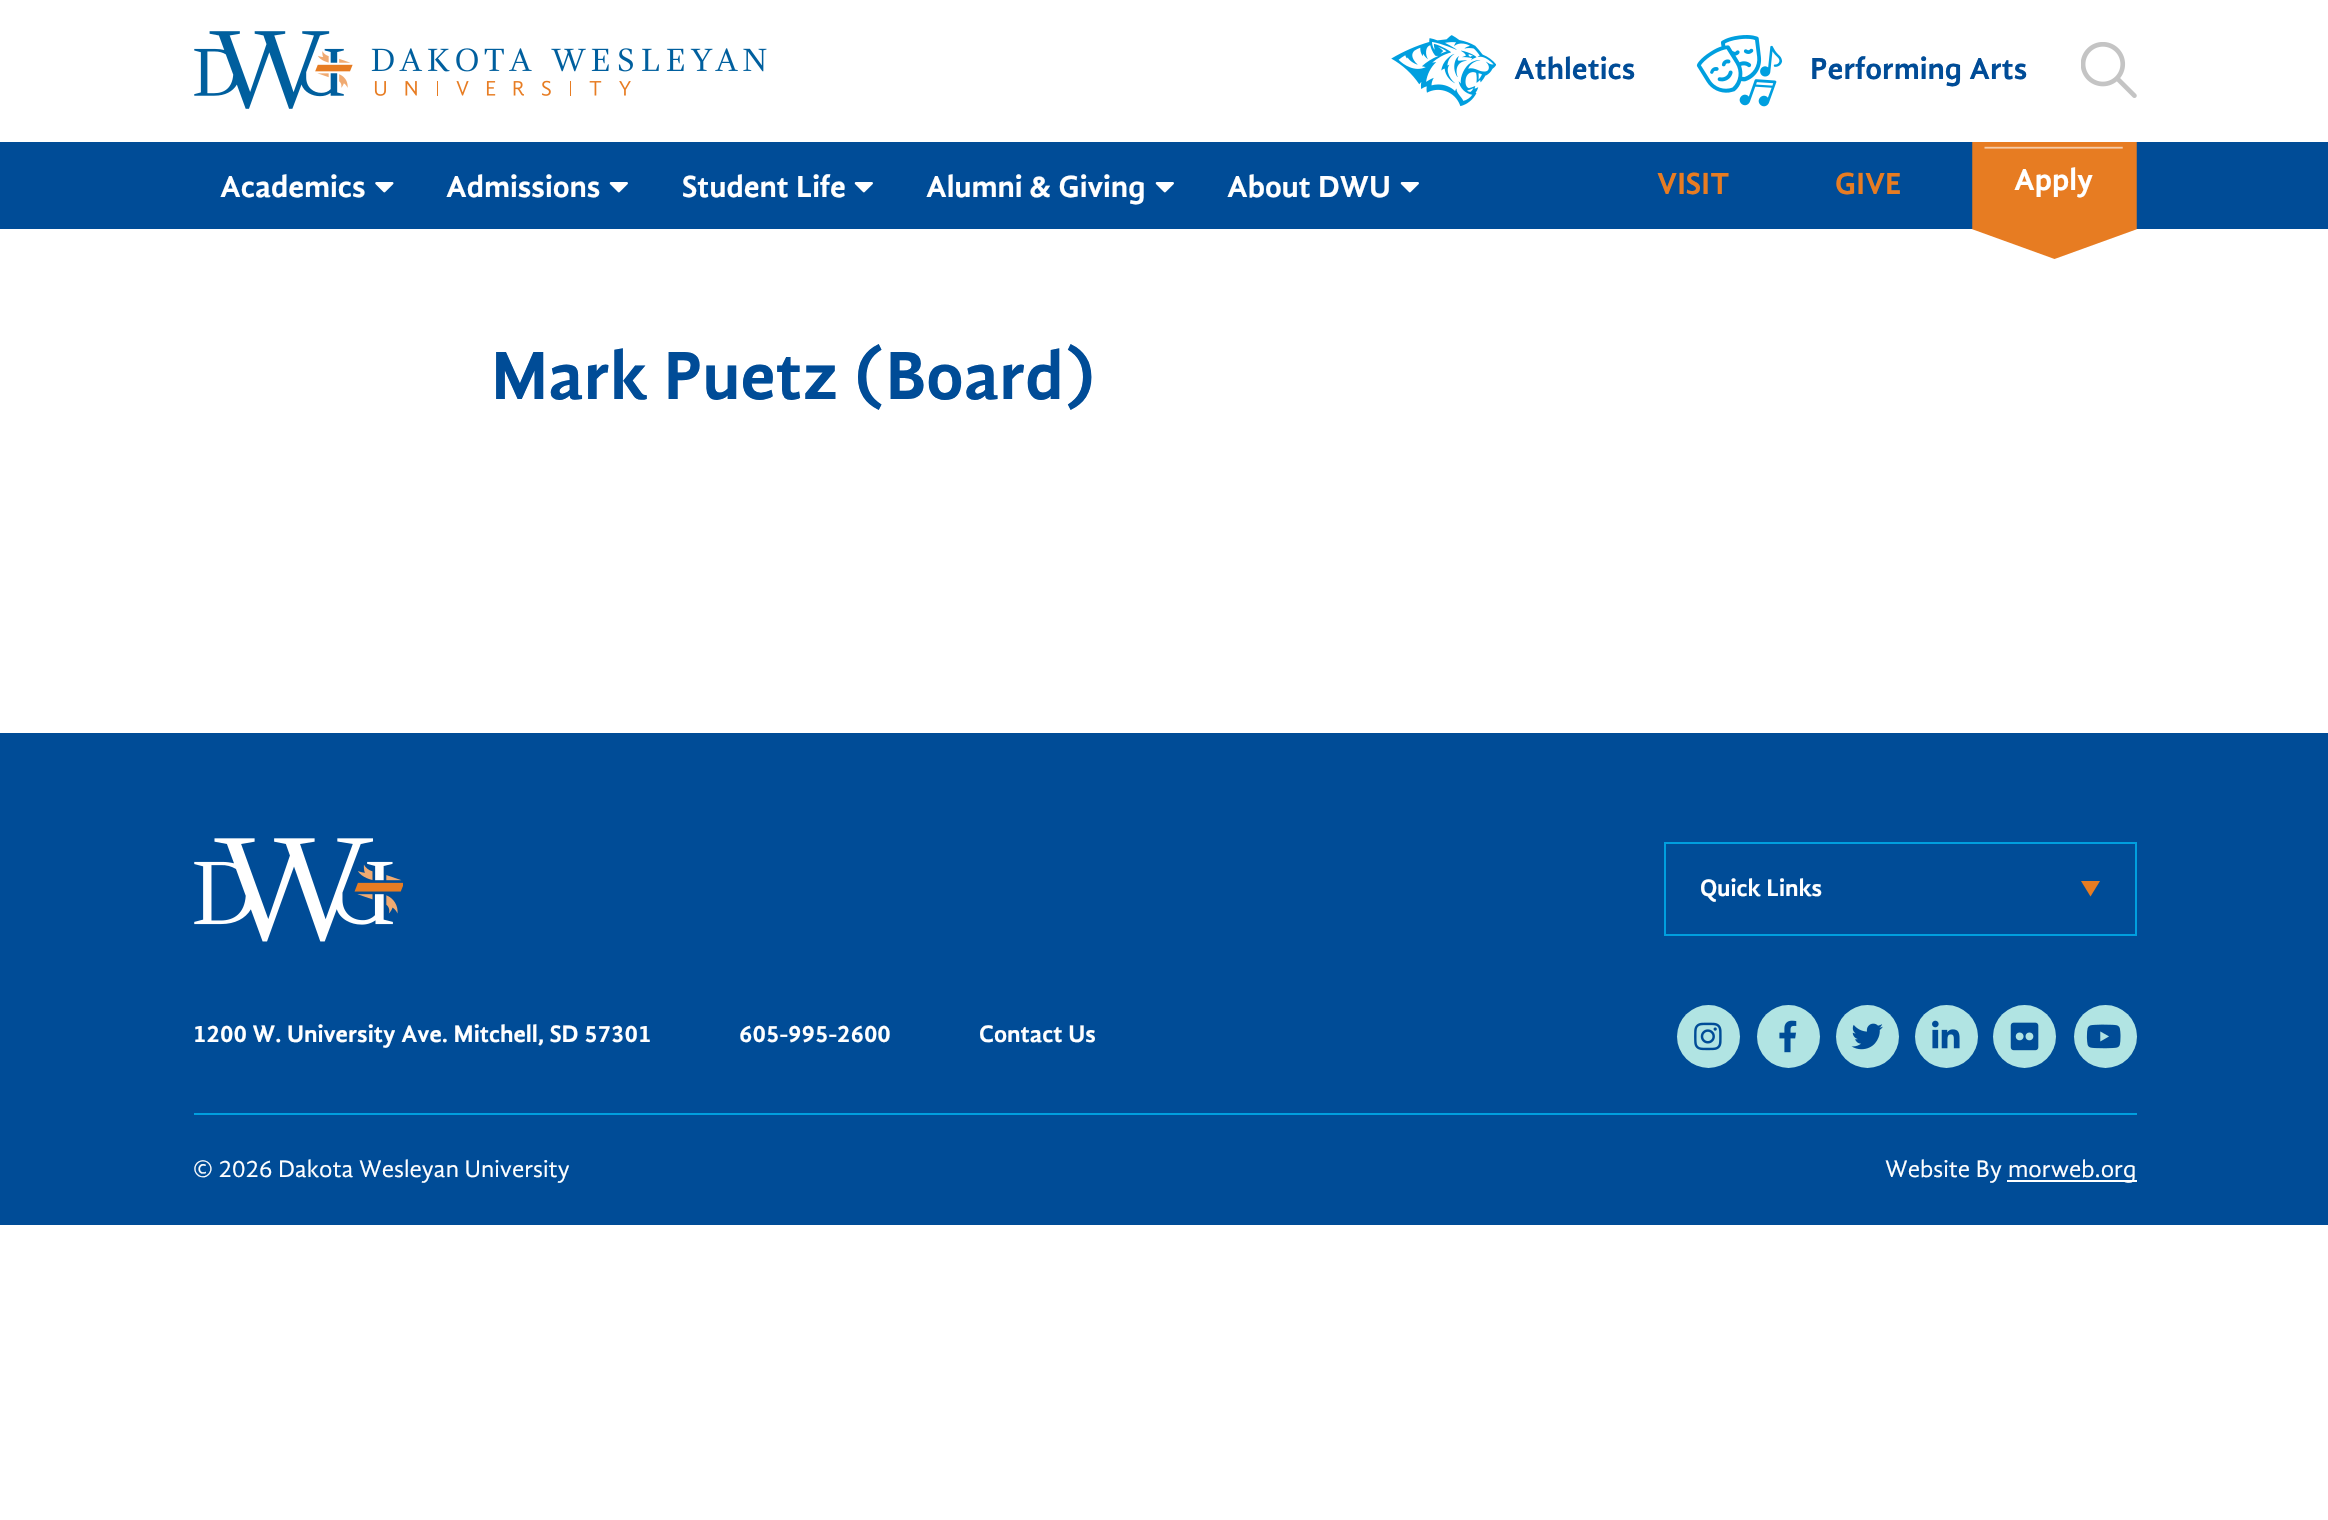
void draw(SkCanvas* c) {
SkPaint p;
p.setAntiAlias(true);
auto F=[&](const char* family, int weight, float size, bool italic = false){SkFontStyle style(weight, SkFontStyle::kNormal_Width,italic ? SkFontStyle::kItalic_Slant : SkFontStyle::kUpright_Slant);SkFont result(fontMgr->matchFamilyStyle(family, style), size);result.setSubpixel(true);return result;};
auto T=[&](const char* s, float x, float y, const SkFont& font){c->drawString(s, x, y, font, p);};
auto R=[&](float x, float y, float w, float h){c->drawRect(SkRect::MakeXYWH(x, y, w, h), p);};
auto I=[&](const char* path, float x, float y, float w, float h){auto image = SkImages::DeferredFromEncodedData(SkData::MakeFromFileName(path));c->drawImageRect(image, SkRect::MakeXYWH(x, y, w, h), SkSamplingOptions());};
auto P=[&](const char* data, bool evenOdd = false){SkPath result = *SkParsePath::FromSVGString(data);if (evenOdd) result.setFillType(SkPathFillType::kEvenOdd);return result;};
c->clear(0xffffffff);
I("1.png",194,31,573,78);
I("2.png",1391,35,105,72);
auto f1 = F("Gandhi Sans",700,31.5);
p.setColor(0xff004c97);
T("Athletics",1514,79,f1);
I("3.png",1696,35,87,72);
T("Performing Arts",1810,79,f1);
I("4.png",2081,42,56,56);
R(0,142,2328,87);
p.setColor(0xffffffff);
T("Academics",220,197,f1);
I("5.png",375,182,19,11);
T("Admissions",446,197,f1);
I("6.png",609,182,19,11);
T("Student Life",682,197,f1);
I("6.png",854,182,19,11);
T("Alumni & Giving",926,197,f1);
I("6.png",1155,182,19,11);
T("About DWU",1227,197,f1);
I("6.png",1400,182,19,11);
p.setColor(0xffe77c22);
T("VISIT",1657,194,f1);
T("GIVE",1835,194,f1);
I("7.png",1972,142,165,117);
p.setColor(0xffffffff);
T("Apply",2014,190,f1);
auto f2 = F("Gandhi Sans",700,70);
p.setColor(0xff004c97);
T("Mark Puetz (Board)",491,399,f2);
R(0,733,2328,492);
I("8.png",194,838,209,104);
p.setStroke(true);
p.setStrokeWidth(2);
p.setColor(0xff009fdf);
c->drawRect(SkRect::MakeXYWH(1665,843,471,92),p);
auto f3 = F("Gandhi Sans",700,24.5);
p.setStroke(false);
p.setColor(0xffffffff);
T("Quick Links",1700,896,f3);
p.setColor(0xffe77c22);
c->drawPath(P("M2090.5 896.5l-9.5-15.5h19z"),p);
p.setColor(0xffffffff);
T("1200 W. University Ave. Mitchell, SD 57301",193,1042,f3);
T("605-995-2600",739,1042,f3);
T("Contact Us",979,1042,f3);
p.setColor(0xffb1e4e3);
c->drawCircle(1708.5,1036.5,31.5,p);
I("9.png",1694,1022,28,29);
c->drawCircle(1788.5,1036.5,31.5,p);
I("10.png",1779,1020,18,33);
c->drawCircle(1867.5,1036.5,31.5,p);
I("11.png",1851,1023,32,27);
c->drawCircle(1946.5,1036.5,31.5,p);
I("12.png",1932,1020,28,29);
c->drawCircle(2024.5,1036.5,31.5,p);
I("13.png",2010,1022,29,29);
c->drawCircle(2105.5,1036.5,31.5,p);
I("14.png",2086,1024,35,25);
p.setColor(0xff009fdf);
R(194,1113,1943,2);
auto f4 = F("Gandhi Sans",400,24.5);
p.setColor(0xffffffff);
T("© 2026 Dakota Wesleyan University",193,1177,f4);
T("Website By",1885,1177,f4);
R(2007,1180,130,2);
T("morweb.org",2008,1177,f4);
}
